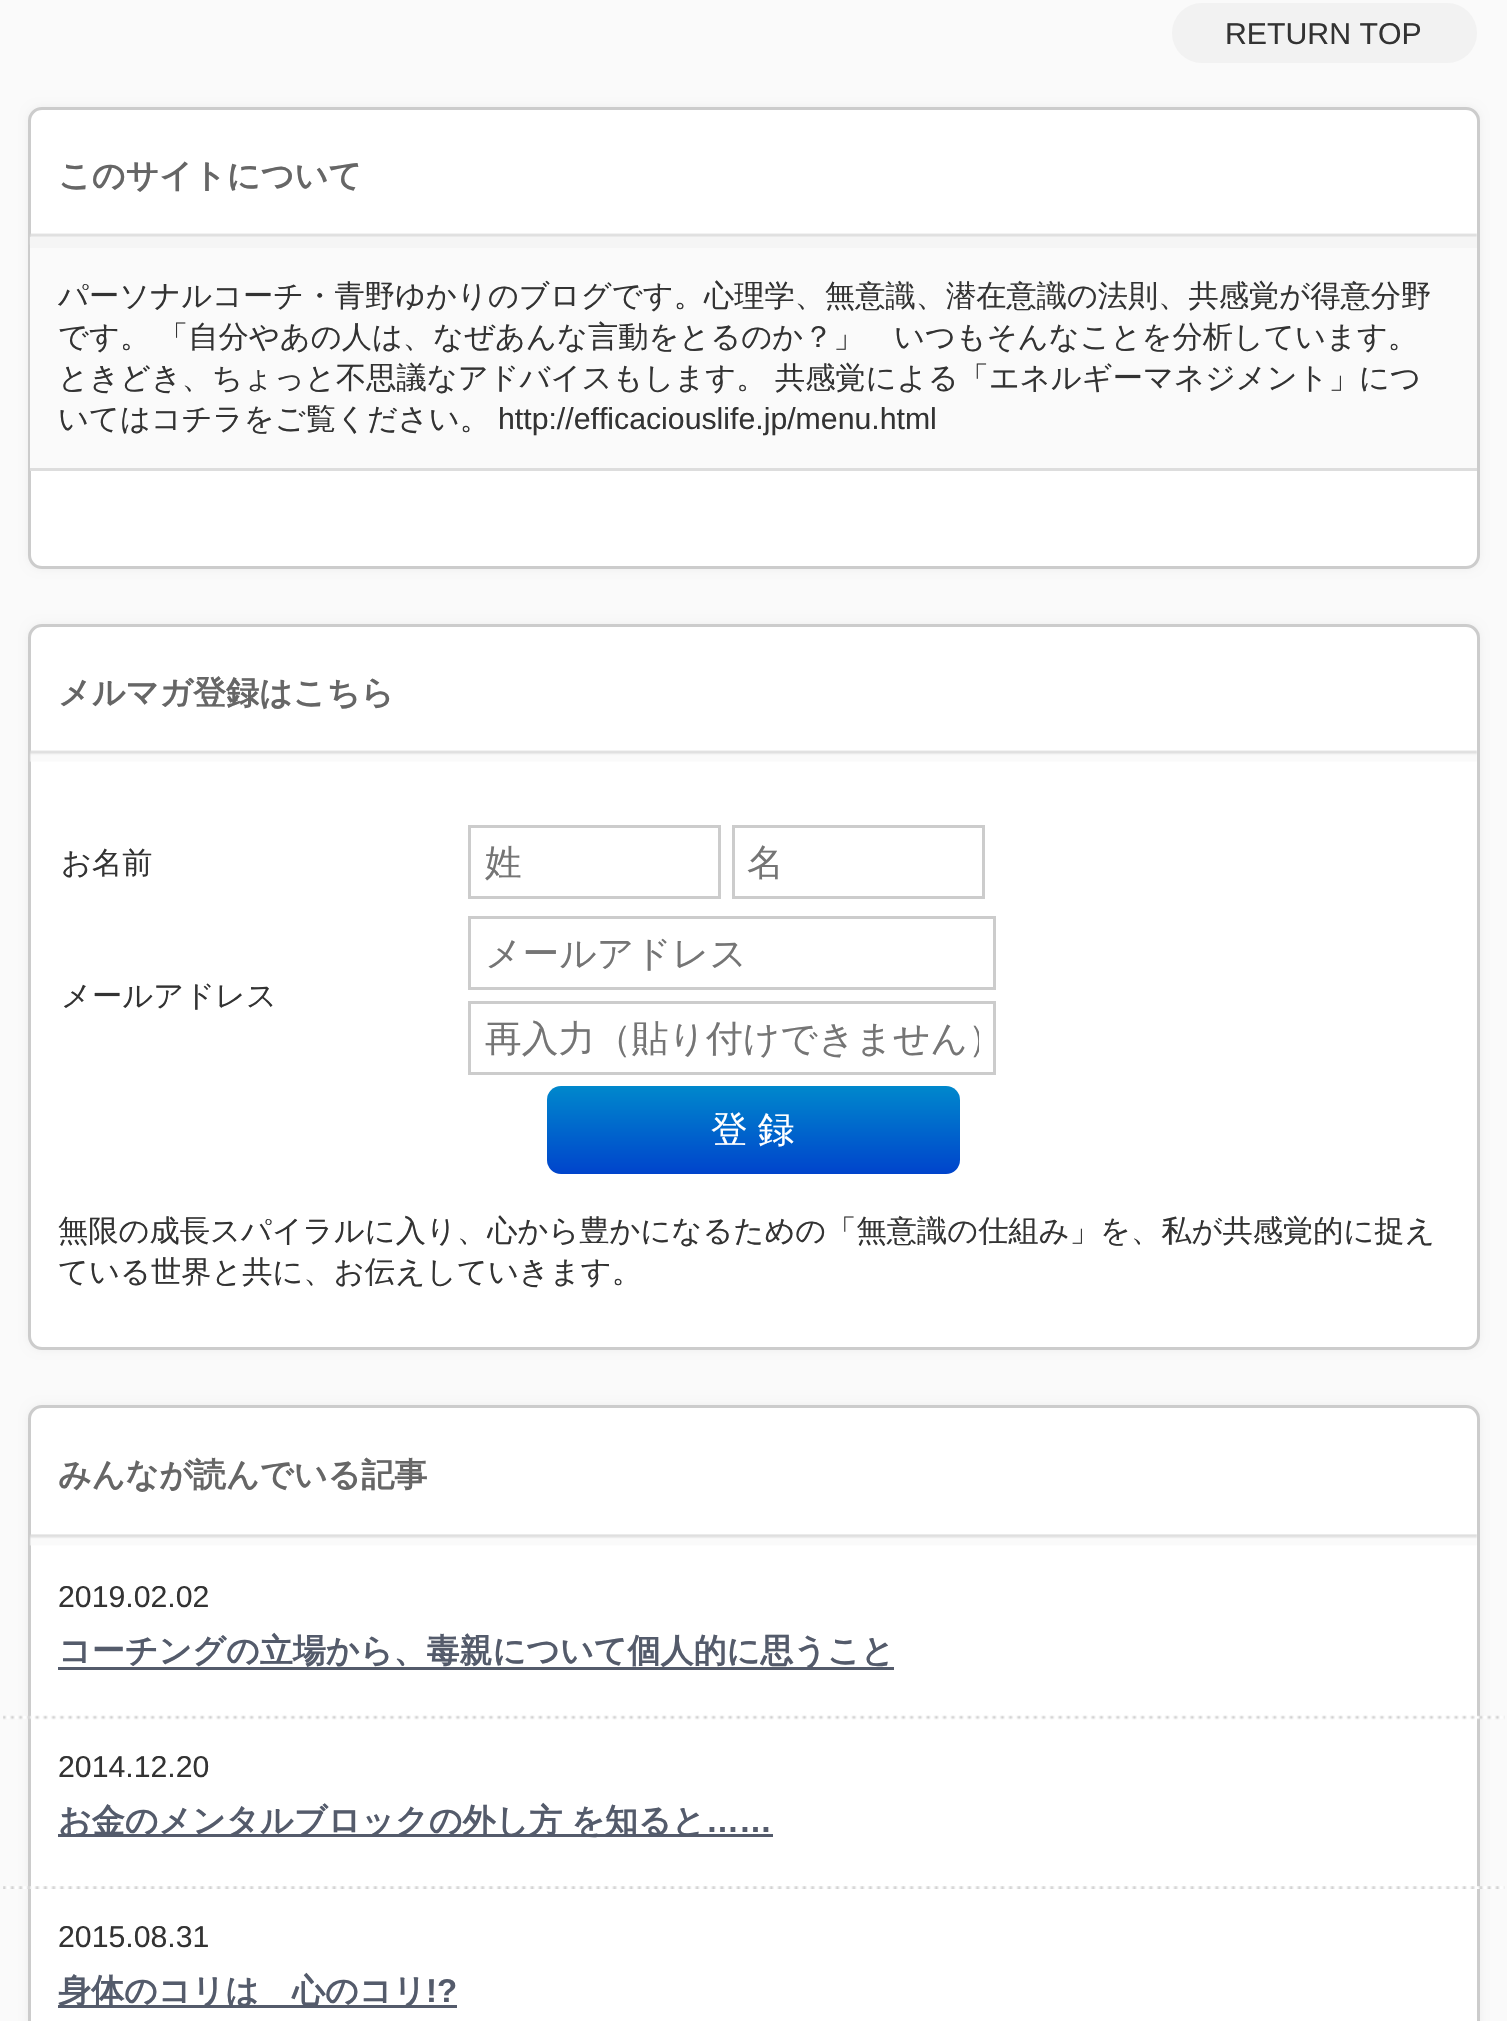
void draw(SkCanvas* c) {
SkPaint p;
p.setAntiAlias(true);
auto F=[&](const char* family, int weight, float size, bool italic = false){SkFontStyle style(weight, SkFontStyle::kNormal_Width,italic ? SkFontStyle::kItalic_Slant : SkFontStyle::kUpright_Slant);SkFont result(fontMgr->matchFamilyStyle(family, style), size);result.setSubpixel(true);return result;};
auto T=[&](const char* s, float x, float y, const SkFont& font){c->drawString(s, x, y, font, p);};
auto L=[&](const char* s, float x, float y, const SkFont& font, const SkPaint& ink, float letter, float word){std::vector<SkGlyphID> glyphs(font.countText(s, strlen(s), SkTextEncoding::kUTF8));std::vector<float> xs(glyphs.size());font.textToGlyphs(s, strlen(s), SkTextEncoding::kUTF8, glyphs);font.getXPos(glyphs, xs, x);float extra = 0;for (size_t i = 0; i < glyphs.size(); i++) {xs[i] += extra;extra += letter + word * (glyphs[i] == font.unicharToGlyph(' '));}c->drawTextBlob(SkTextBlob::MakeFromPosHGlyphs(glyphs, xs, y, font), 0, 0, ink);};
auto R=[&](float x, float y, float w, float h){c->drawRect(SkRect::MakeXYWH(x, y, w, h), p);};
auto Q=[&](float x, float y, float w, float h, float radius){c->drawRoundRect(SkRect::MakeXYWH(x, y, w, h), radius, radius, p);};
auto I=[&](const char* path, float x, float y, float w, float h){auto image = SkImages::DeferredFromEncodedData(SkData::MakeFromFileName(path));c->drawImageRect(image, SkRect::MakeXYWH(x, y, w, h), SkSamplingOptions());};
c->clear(0xfffafafa);
p.setColor(0xfff2f2f2);
Q(1172,3,305,60,30);
auto f1 = F("Liberation Sans",400,30.25);
p.setColor(0xff333333);
T("RETURN TOP",1225,44,f1);
p.setColor(0xffeeeeee);
p.setMaskFilter(SkMaskFilter::MakeBlur(kNormal_SkBlurStyle, 4));
c->drawRoundRect(SkRect::MakeXYWH(28,107,1452,462),14,14,p);
p.setMaskFilter(nullptr);
p.setColor(0xffffffff);
c->drawRoundRect(SkRect::MakeXYWH(29.5,108.5,1449,459),12.5,12.5,p);
p.setStroke(true);
p.setStrokeWidth(3);
p.setColor(0xffcccccc);
c->drawRoundRect(SkRect::MakeXYWH(29.5,108.5,1449,459),12.5,12.5,p);
I("1.png",29,233,1448,12);
auto f2 = F("WenQuanYi Zen Hei",700,33);
p.setStroke(false);
p.setColor(0xff666666);
T("このサイトについて",58,187,f2);
p.setColor(0xfffafafa);
R(30,248,1447,220);
p.setColor(0xfff5f5f5);
R(30,237,1447,11);
p.setColor(0xffdddddd);
R(30,468,1447,3);
auto f3 = F("WenQuanYi Zen Hei",500,30.25);
p.setColor(0xff333333);
T("パーソナルコーチ・青野ゆかりのブログです。心理学、無意識、潜在意識の法則、共感覚が得意分野",58,306,f3);
T("です。",58,347,f3);
T("「自分やあの人は、なぜあんな言動をとるのか？」　いつもそんなことを分析しています。",158,347,f3);
T("ときどき、ちょっと不思議なアドバイスもします。",58,388,f3);
T("共感覚による「エネルギーマネジメント」につ",775,388,f3);
T("いてはコチラをご覧ください。",58,429,f3);
T("http://efficaciouslife.jp/menu.html",498,429,f1);
p.setColor(0xffeeeeee);
p.setMaskFilter(SkMaskFilter::MakeBlur(kNormal_SkBlurStyle, 4));
c->drawRoundRect(SkRect::MakeXYWH(28,624,1452,726),14,14,p);
p.setMaskFilter(nullptr);
p.setColor(0xffffffff);
c->drawRoundRect(SkRect::MakeXYWH(29.5,625.5,1449,723),12.5,12.5,p);
p.setStroke(true);
p.setColor(0xffcccccc);
c->drawRoundRect(SkRect::MakeXYWH(29.5,625.5,1449,723),12.5,12.5,p);
I("1.png",29,750,1448,12);
p.setStroke(false);
p.setColor(0xff666666);
T("メルマガ登録はこちら",58,704,f2);
p.setColor(0xff333333);
T("お名前",61,873,f3);
p.setStroke(true);
p.setColor(0xffcccccc);
c->drawRect(SkRect::MakeXYWH(469.5,826.5,250,71),p);
auto f4 = F("WenQuanYi Zen Hei",500,36.7);
p.setStroke(false);
p.setColor(0xff757575);
T("姓",485,875,f4);
p.setStroke(true);
p.setColor(0xffcccccc);
c->drawRect(SkRect::MakeXYWH(733.5,826.5,250,71),p);
p.setStroke(false);
p.setColor(0xff757575);
T("名",747,875,f4);
p.setColor(0xff333333);
T("メールアドレス",61,1006,f3);
p.setStroke(true);
p.setColor(0xffcccccc);
c->drawRect(SkRect::MakeXYWH(469.5,917.5,525,71),p);
p.setStroke(false);
p.setColor(0xff757575);
T("メールアドレス",485,966,f4);
p.setStroke(true);
p.setColor(0xffcccccc);
c->drawRect(SkRect::MakeXYWH(469.5,1002.5,525,71),p);
c->save();
c->clipRect(SkRect::MakeXYWH(484,1015,495,49));
p.setStroke(false);
p.setColor(0xff757575);
T("再入力（貼り付けできません）",485,1051,f4);
c->restore();
{
const SkColor colors[] = {0xff0088cc,0xff0044cc};
const float stops[] = {0,1};
const SkPoint ends[] = {{754,1086}, {754,1174}};
p.setShader(SkGradientShader::MakeLinear(ends, colors, stops, 2, SkTileMode::kClamp));
p.setAlpha(255);
}
Q(547,1086,413,88,14);
p.setShader(nullptr);
p.setColor(0xffffffff);
L("登 録",711,1142,f4,p,0,-1);
p.setColor(0xff333333);
T("無限の成長スパイラルに入り、心から豊かになるための「無意識の仕組み」を、私が共感覚的に捉え",58,1241,f3);
T("ている世界と共に、お伝えしていきます。",58,1282,f3);
p.setColor(0xffeeeeee);
p.setMaskFilter(SkMaskFilter::MakeBlur(kNormal_SkBlurStyle, 4));
c->drawRoundRect(SkRect::MakeXYWH(28,1405,1452,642),14,14,p);
p.setMaskFilter(nullptr);
p.setColor(0xffffffff);
c->drawRoundRect(SkRect::MakeXYWH(29.5,1406.5,1449,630),12.5,12.5,p);
p.setStroke(true);
p.setColor(0xffcccccc);
c->drawRoundRect(SkRect::MakeXYWH(29.5,1406.5,1449,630),12.5,12.5,p);
I("2.png",29,1534,1448,12);
p.setStroke(false);
p.setColor(0xff666666);
T("みんなが読んでいる記事",58,1486,f2);
I("3.png",3,1715,1502,5);
p.setColor(0xff333333);
T("2019.02.02",58,1607,f1);
p.setColor(0xff545b6b);
R(58,1667,836,3);
T("コーチングの立場から、毒親について個人的に思うこと",58,1662,f2);
I("4.png",3,1886,1502,3);
p.setColor(0xff333333);
T("2014.12.20",58,1777,f1);
p.setColor(0xff545b6b);
R(58,1834,715,3);
L("お金のメンタルブロックの外し方 を知ると",58,1832,f2,p,0,-1);
auto f5 = F("Liberation Sans",700,33);
T("……",706,1832,f5);
p.setColor(0xff333333);
T("2015.08.31",58,1947,f1);
p.setColor(0xff545b6b);
R(58,2005,399,3);
T("身体のコリは　心のコリ",58,2002,f2);
T("!?",426,2002,f5);
}
